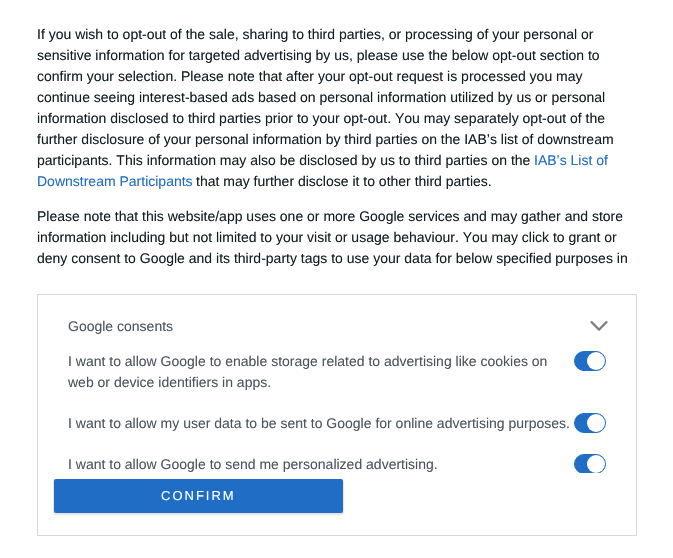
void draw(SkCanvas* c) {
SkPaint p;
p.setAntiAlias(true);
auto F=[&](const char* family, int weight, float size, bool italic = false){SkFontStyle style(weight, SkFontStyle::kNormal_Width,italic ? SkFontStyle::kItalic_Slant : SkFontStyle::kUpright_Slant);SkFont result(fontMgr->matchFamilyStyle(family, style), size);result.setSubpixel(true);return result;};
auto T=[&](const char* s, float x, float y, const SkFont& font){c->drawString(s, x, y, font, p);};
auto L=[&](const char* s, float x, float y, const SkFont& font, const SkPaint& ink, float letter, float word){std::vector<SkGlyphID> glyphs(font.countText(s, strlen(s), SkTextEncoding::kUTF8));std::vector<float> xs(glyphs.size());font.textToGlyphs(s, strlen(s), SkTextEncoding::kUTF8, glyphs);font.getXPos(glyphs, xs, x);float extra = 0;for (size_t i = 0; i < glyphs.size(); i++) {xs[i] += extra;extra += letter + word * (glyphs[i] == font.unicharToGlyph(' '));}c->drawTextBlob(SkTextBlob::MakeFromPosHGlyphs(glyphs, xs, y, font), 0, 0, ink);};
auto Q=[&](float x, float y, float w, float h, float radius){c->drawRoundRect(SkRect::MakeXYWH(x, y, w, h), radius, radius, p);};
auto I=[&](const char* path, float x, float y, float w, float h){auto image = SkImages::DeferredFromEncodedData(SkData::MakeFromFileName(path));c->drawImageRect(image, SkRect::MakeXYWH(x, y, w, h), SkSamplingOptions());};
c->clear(0xffffffff);
auto f1 = F("Liberation Sans",400,14);
p.setColor(0xff141e23);
T("If you wish to opt-out of the sale, sharing to third parties, or processing of your personal or",37,39,f1);
T("sensitive information for targeted advertising by us, please use the below opt-out section to",37,60,f1);
T("confirm your selection. Please note that after your opt-out request is processed you may",37,81,f1);
T("continue seeing interest-based ads based on personal information utilized by us or personal",37,102,f1);
T("information disclosed to third parties prior to your opt-out. You may separately opt-out of the",37,123,f1);
T("further disclosure of your personal information by third parties on the IAB’s list of downstream",37,144,f1);
T("participants. This information may also be disclosed by us to third parties on the",37,165,f1);
p.setColor(0xff206dc5);
T("IAB’s List of",534,165,f1);
T("Downstream Participants",37,186,f1);
p.setColor(0xff141e23);
T("that may further disclose it to other third parties.",196,186,f1);
T("Please note that this website/app uses one or more Google services and may gather and store",37,221,f1);
T("information including but not limited to your visit or usage behaviour. You may click to grant or",37,242,f1);
T("deny consent to Google and its third-party tags to use your data for below specified purposes in",37,263,f1);
p.setStroke(true);
p.setStrokeWidth(1);
p.setColor(0xffd8d8d8);
c->drawRect(SkRect::MakeXYWH(37.5,294.5,599,241),p);
p.setStroke(false);
p.setColor(0xff4d545d);
T("Google consents",68,331,f1);
I("1.png",590,321,18,10);
T("I want to allow Google to enable storage related to advertising like cookies on",68,366,f1);
T("web or device identifiers in apps.",68,387,f1);
p.setColor(0xff206dc5);
c->drawRoundRect(SkRect::MakeXYWH(574.5,351.5,31,19),9.5,9.5,p);
p.setStroke(true);
c->drawRoundRect(SkRect::MakeXYWH(574.5,351.5,31,19),9.5,9.5,p);
p.setStroke(false);
p.setColor(0xffffffff);
c->drawCircle(596,361,9,p);
p.setColor(0xff4d545d);
T("I want to allow my user data to be sent to Google for online advertising purposes.",68,428,f1);
p.setColor(0xff206dc5);
c->drawRoundRect(SkRect::MakeXYWH(574.5,413.5,31,19),9.5,9.5,p);
p.setStroke(true);
c->drawRoundRect(SkRect::MakeXYWH(574.5,413.5,31,19),9.5,9.5,p);
p.setStroke(false);
p.setColor(0xffffffff);
c->drawCircle(596,423,9,p);
p.setColor(0xff4d545d);
T("I want to allow Google to send me personalized advertising.",68,469,f1);
c->save();
c->clipRect(SkRect::MakeXYWH(48,305,578,168));
p.setColor(0xff206dc5);
c->drawRoundRect(SkRect::MakeXYWH(574.5,454.5,31,19),9.5,9.5,p);
p.setStroke(true);
c->drawRoundRect(SkRect::MakeXYWH(574.5,454.5,31,19),9.5,9.5,p);
c->restore();
p.setStroke(false);
p.setColor(0xffffffff);
c->drawCircle(596,464,9,p);
p.setColor(0x1a000000);
p.setMaskFilter(SkMaskFilter::MakeBlur(kNormal_SkBlurStyle, .5));
c->drawRoundRect(SkRect::MakeXYWH(53,479,291,36),3,3,p);
p.setMaskFilter(nullptr);
p.setColor(0xff206dc5);
Q(54,479,289,34,2);
auto f2 = F("Liberation Sans",400,13);
p.setColor(0xffffffff);
L("CONFIRM",161,500,f2,p,2,0);
}
